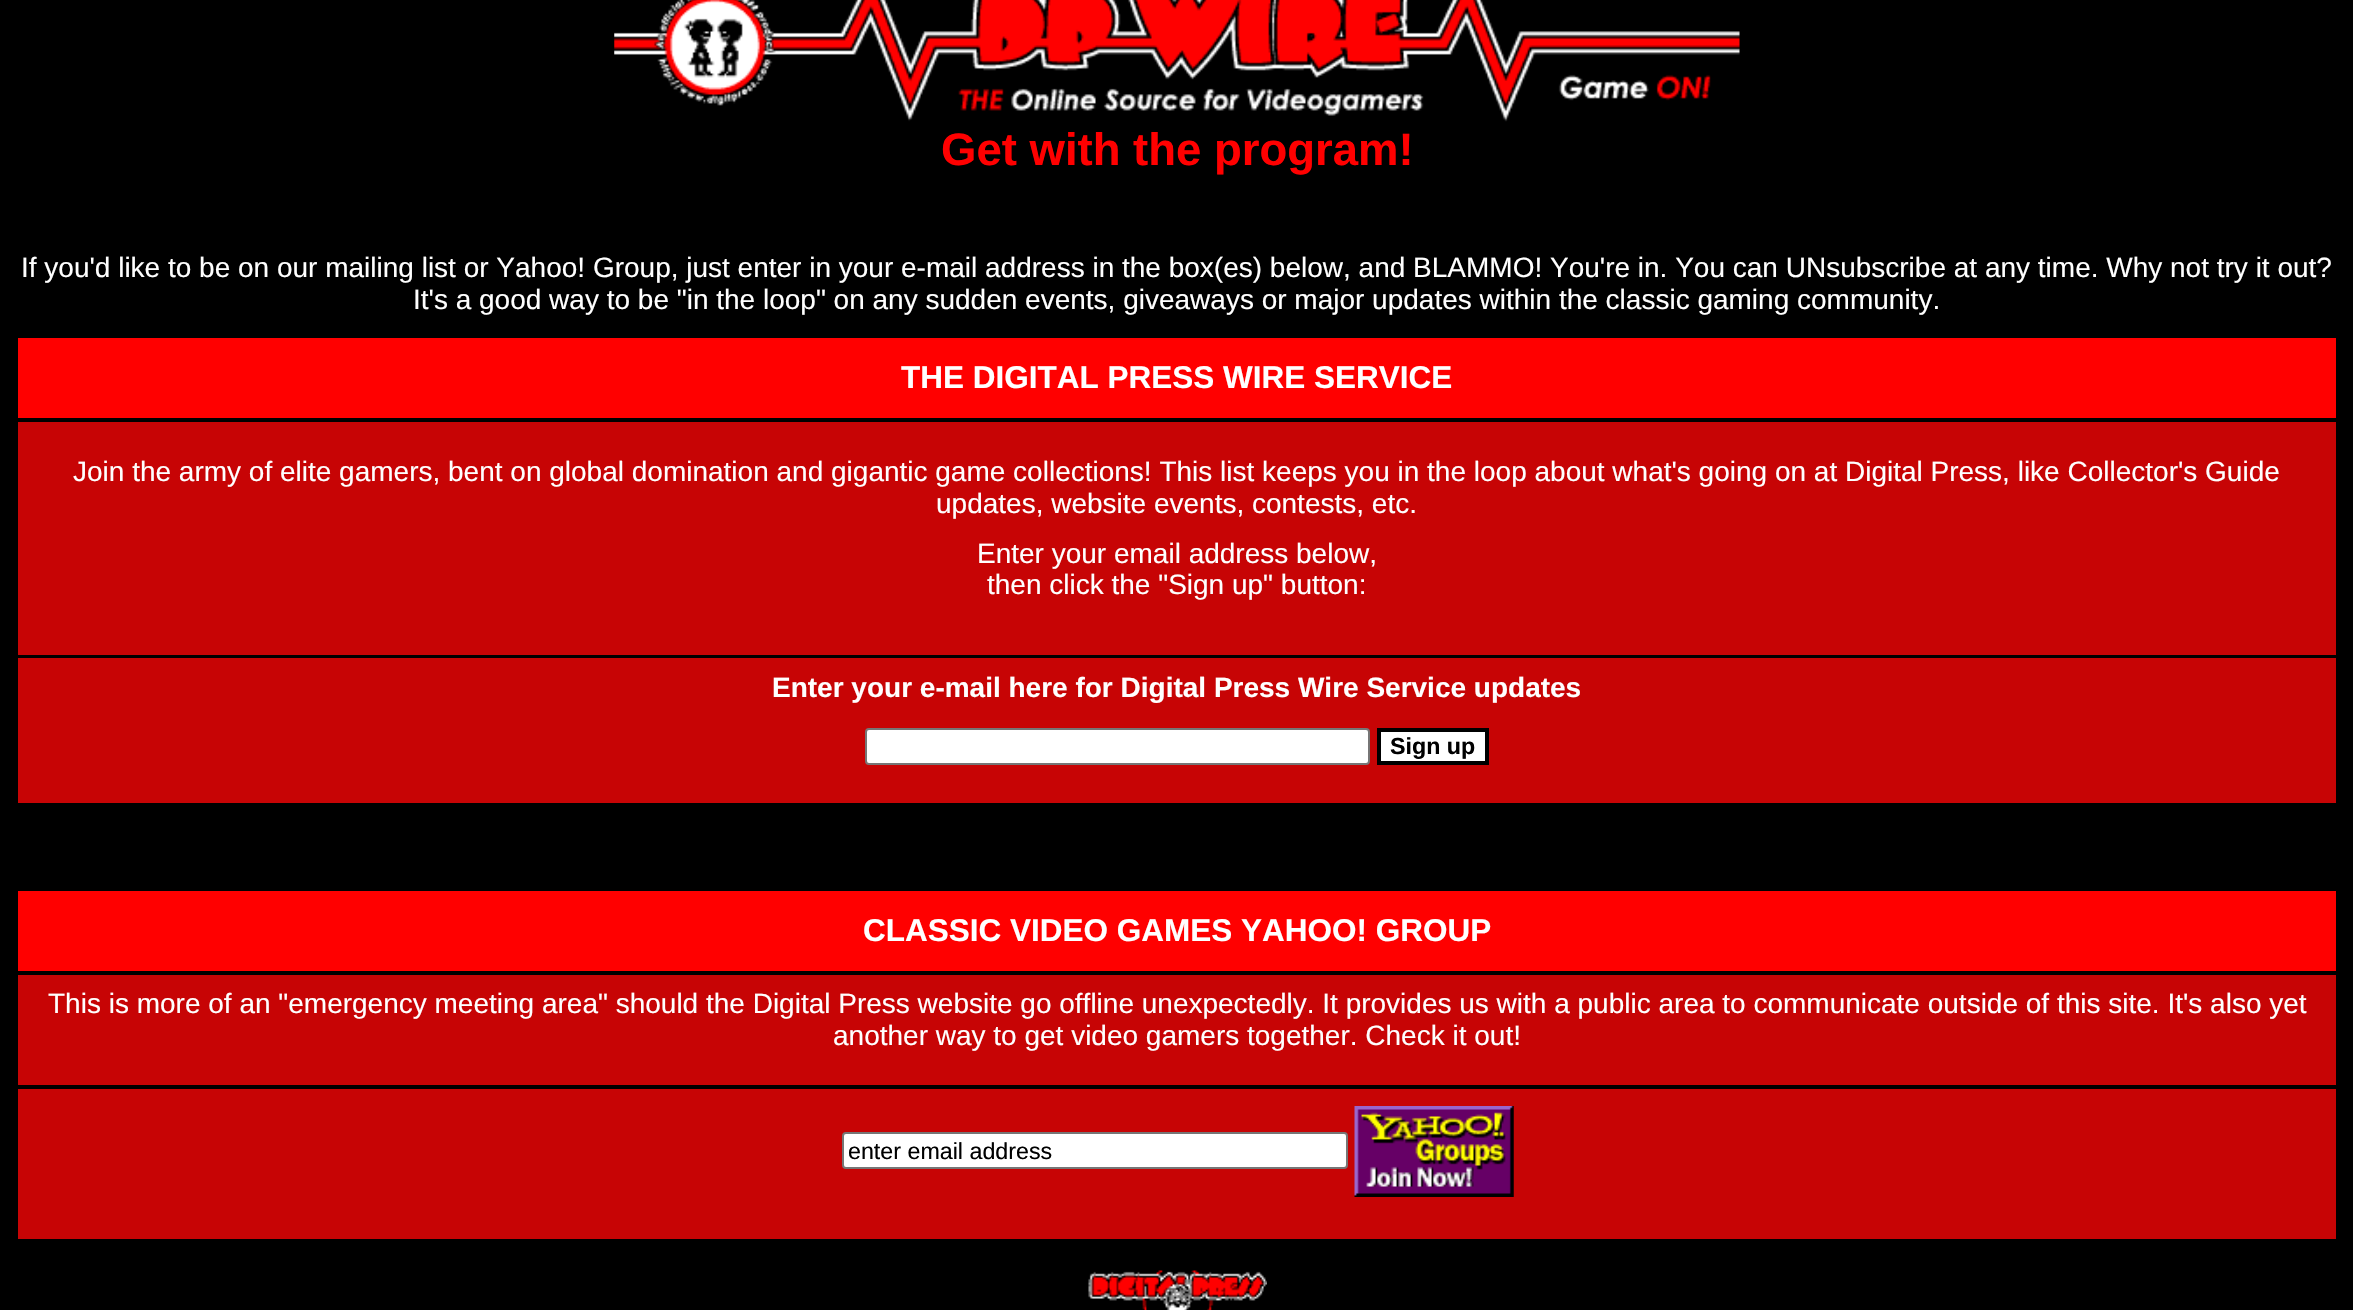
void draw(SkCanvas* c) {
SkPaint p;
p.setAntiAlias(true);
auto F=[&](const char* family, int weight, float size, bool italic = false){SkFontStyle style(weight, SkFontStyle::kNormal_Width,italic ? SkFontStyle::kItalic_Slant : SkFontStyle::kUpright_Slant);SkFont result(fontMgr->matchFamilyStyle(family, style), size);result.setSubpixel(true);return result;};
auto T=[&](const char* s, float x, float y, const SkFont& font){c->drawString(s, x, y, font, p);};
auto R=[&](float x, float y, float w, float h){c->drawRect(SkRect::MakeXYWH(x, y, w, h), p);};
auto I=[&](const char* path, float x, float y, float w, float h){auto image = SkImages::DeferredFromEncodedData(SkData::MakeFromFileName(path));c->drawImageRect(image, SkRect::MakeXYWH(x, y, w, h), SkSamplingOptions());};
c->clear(0xff000000);
I("1.png",614,0,1126,122);
auto f1 = F("Liberation Sans",700,45.5);
p.setColor(0xffff0000);
T("Get with the program!",941,165,f1);
auto f2 = F("Liberation Sans",400,28);
p.setColor(0xffffffff);
T("If you'd like to be on our mailing list or Yahoo! Group, just enter in your e-mail address in the box(es) below, and BLAMMO! You're in. You can UNsubscribe at any time. Why not try it out?",21,277,f2);
T("It's a good way to be \"in the loop\" on any sudden events, giveaways or major updates within the classic gaming community.",413,309,f2);
p.setColor(0xffff0000);
R(18,338,2318,80);
auto f3 = F("Liberation Sans",700,31.5);
p.setColor(0xffffffff);
T("THE DIGITAL PRESS WIRE SERVICE",901,388,f3);
p.setColor(0xffc70405);
R(18,422,2318,233);
p.setColor(0xffffffff);
T("Join the army of elite gamers, bent on global domination and gigantic game collections! This list keeps you in the loop about what's going on at Digital Press, like Collector's Guide",73,481,f2);
T("updates, website events, contests, etc.",936,513,f2);
T("Enter your email address below,",977,563,f2);
T("then click the \"Sign up\" button:",987,594,f2);
p.setColor(0xffc70405);
R(18,658,2318,145);
auto f4 = F("Liberation Sans",700,28);
p.setColor(0xffffffff);
T("Enter your e-mail here for Digital Press Wire Service updates",772,697,f4);
c->drawRoundRect(SkRect::MakeXYWH(866,729,503,35),3,3,p);
p.setStroke(true);
p.setStrokeWidth(2);
p.setColor(0xff767676);
c->drawRoundRect(SkRect::MakeXYWH(866,729,503,35),3,3,p);
p.setStroke(false);
p.setColor(0xffffffff);
c->drawRect(SkRect::MakeXYWH(1379,730,108,33),p);
p.setStroke(true);
p.setStrokeWidth(4);
p.setColor(0xff000000);
c->drawRect(SkRect::MakeXYWH(1379,730,108,33),p);
auto f5 = F("Liberation Sans",700,23.25);
p.setStroke(false);
T("Sign up",1390,754,f5);
p.setColor(0xffff0000);
R(18,891,2318,80);
p.setColor(0xffffffff);
T("CLASSIC VIDEO GAMES YAHOO! GROUP",863,941,f3);
p.setColor(0xffc70405);
R(18,975,2318,110);
p.setColor(0xffffffff);
T("This is more of an \"emergency meeting area\" should the Digital Press website go offline unexpectedly. It provides us with a public area to communicate outside of this site. It's also yet",48,1013,f2);
T("another way to get video gamers together. Check it out!",833,1045,f2);
p.setColor(0xffc70405);
R(18,1089,2318,150);
p.setColor(0xffffffff);
c->drawRoundRect(SkRect::MakeXYWH(843,1133,504,35),3,3,p);
p.setStroke(true);
p.setStrokeWidth(2);
p.setColor(0xff767676);
c->drawRoundRect(SkRect::MakeXYWH(843,1133,504,35),3,3,p);
auto f6 = F("Liberation Sans",400,23.25);
p.setStroke(false);
p.setColor(0xff000000);
T("enter email address",848,1159,f6);
I("2.png",1354,1106,160,91);
I("3.png",1088,1270,179,40);
}
